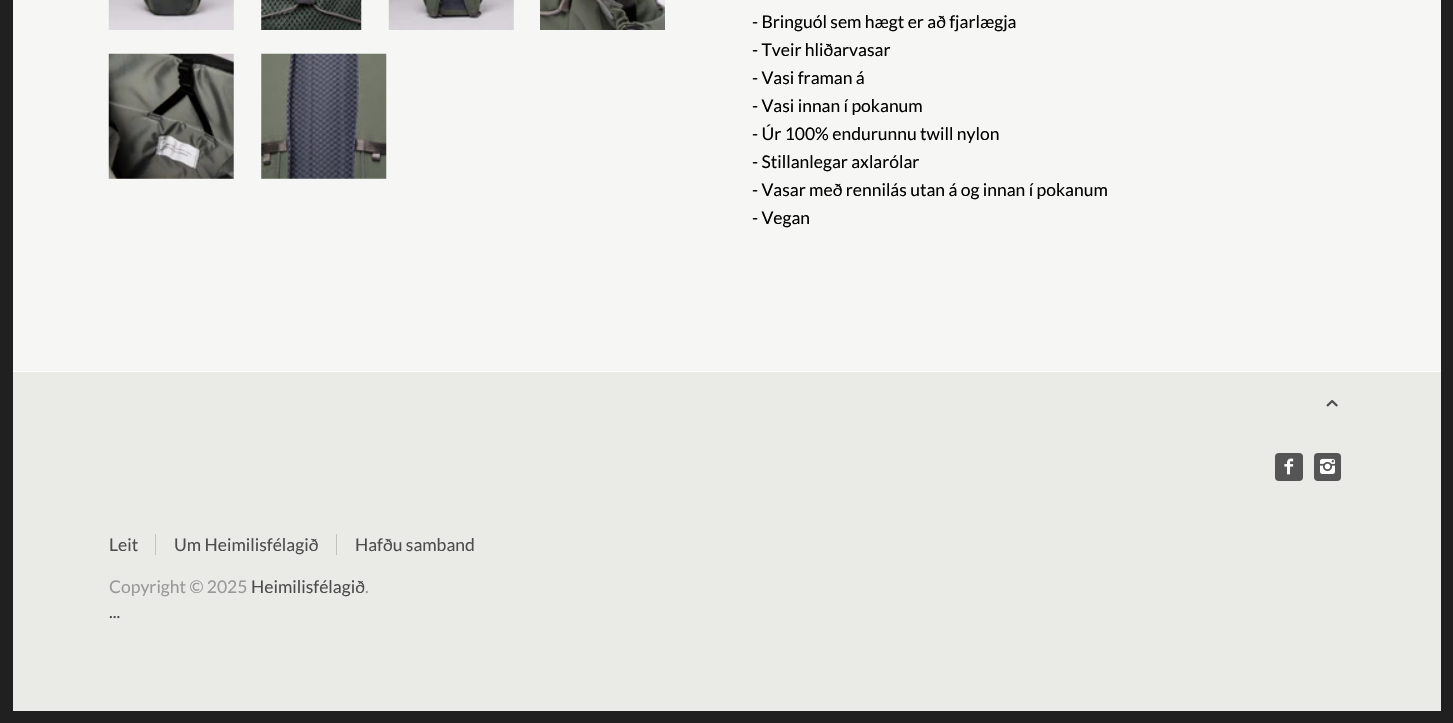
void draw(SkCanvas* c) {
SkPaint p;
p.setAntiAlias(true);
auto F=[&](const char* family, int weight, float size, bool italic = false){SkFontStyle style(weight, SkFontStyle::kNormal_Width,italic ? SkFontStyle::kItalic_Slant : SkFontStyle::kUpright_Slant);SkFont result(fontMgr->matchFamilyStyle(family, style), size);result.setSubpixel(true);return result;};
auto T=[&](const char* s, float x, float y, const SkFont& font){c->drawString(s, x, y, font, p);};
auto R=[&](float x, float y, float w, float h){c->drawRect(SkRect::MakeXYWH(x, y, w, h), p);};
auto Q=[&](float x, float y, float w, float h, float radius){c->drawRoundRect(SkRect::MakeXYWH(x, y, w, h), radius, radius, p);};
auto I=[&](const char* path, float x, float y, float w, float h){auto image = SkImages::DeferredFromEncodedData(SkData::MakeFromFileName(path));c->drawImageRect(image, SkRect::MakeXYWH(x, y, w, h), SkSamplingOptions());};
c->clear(0xffeaebe7);
p.setStroke(true);
p.setStrokeWidth(13);
p.setColor(0xff202020);
c->drawRect(SkRect::MakeXYWH(6.5,-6.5,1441,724),p);
p.setStroke(false);
p.setColor(0xfff6f7f4);
R(13,0,1428,371);
I("1.png",108,0,126,30);
I("2.png",261,0,101,30);
I("3.png",388,0,126,30);
I("4.png",540,0,125,30);
I("5.png",108,53,126,126);
I("6.png",261,53,126,126);
auto f1 = F("Lato",400,17.5);
p.setColor(0xff000000);
T("- Bringuól sem hægt er að fjarlægja",752,28,f1);
T("- Tveir hliðarvasar",752,56,f1);
T("- Vasi framan á",752,84,f1);
T("- Vasi innan í pokanum",752,112,f1);
T("- Úr 100% endurunnu twill nylon",752,140,f1);
T("- Stillanlegar axlarólar",752,168,f1);
T("- Vasar með rennilás utan á og innan í pokanum",752,196,f1);
T("- Vegan",752,224,f1);
p.setColor(0xffffffff);
R(13,371,1428,1);
I("7.png",1326,400,12,7);
p.setColor(0xff555555);
Q(1275,453,28,28,4);
I("8.png",1284,458,10,17);
Q(1314,453,27,28,4);
I("9.png",1320,458,15,16);
p.setColor(0xff4d4d4d);
T("Leit",109,551,f1);
T("Um Heimilisfélagið",174,551,f1);
p.setColor(0xffc1c2c0);
R(155,534,1,21);
p.setColor(0xff4d4d4d);
T("Hafðu samband",355,551,f1);
p.setColor(0xffc1c2c0);
R(336,534,1,21);
p.setColor(0xff999999);
T("Copyright © 2025",109,593,f1);
p.setColor(0xff4d4d4d);
T("Heimilisfélagið",251,593,f1);
p.setColor(0xff999999);
T(".",365,593,f1);
p.setColor(0xff4d4d4d);
T("...",109,618,f1);
}
